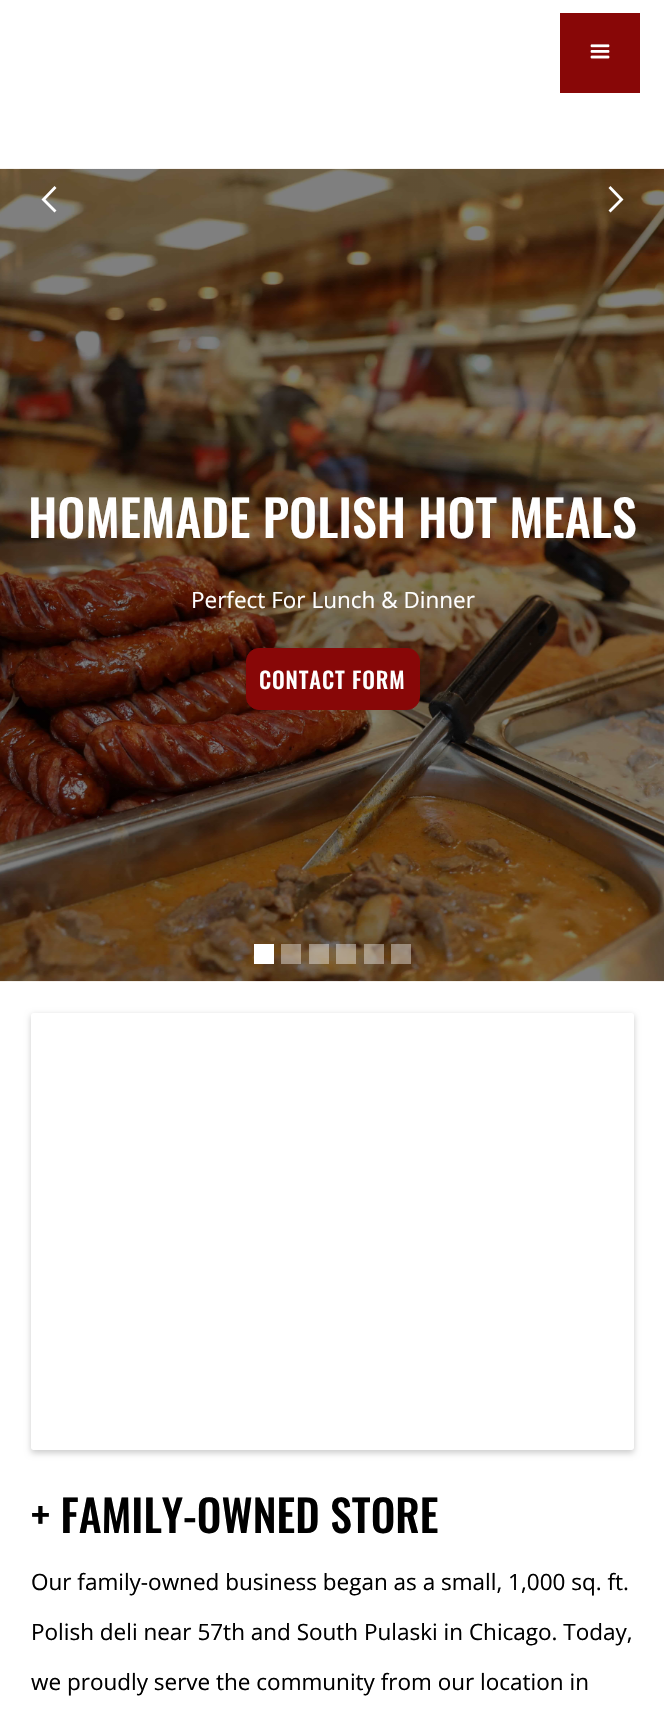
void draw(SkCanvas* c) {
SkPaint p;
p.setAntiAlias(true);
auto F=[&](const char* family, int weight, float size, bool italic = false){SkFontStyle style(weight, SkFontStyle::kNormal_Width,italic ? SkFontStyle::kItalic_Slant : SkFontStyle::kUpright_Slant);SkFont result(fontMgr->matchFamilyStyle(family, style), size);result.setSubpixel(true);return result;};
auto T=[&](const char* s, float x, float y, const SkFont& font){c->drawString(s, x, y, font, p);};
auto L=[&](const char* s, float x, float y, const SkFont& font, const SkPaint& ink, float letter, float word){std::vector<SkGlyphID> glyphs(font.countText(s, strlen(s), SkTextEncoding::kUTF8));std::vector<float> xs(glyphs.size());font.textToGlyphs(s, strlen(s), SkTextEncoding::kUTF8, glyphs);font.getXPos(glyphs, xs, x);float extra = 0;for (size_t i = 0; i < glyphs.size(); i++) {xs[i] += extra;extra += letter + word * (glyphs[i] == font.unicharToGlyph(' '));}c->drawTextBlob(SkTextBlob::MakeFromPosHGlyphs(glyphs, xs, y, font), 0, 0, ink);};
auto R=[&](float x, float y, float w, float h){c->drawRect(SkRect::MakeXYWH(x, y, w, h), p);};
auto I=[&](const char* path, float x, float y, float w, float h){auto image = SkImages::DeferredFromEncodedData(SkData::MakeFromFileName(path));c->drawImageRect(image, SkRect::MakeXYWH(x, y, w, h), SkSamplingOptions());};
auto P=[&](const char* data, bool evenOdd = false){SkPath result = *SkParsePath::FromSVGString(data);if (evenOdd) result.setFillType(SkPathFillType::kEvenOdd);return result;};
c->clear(0xffffffff);
p.setColor(0xff880707);
R(560,13,80,80);
I("1.png",590,44,20,15);
I("2.png",0,168,664,814);
p.setColor(0xffffffff);
c->drawPath(P("M41.5 199.5l13-13.5l2 2l-11 11.5l11 11l-2 2z"),p);
c->drawPath(P("M623.5 199.5l-13-13.5l-2 2l11 11.5l-11 11l2 2z"),p);
auto f1 = F("Oswald",500,50);
T("HOMEMADE POLISH HOT MEALS",28,538,f1);
auto f2 = F("Open Sans",400,22.5);
T("Perfect For Lunch & Dinner",191,608,f2);
p.setColor(0xff880707);
c->drawRoundRect(SkRect::MakeXYWH(246.5,648.5,173,61),12.5,12.5,p);
p.setStroke(true);
p.setStrokeWidth(1);
c->drawRoundRect(SkRect::MakeXYWH(246.5,648.5,173,61),12.5,12.5,p);
auto f3 = F("Oswald",500,22.5);
p.setStroke(false);
p.setColor(0xffffffff);
L("CONTACT FORM",259,689,f3,p,.9,0);
R(254,944,20,20);
p.setColor(0x66ffffff);
R(281,944,20,20);
R(309,944,20,20);
R(336,944,20,20);
R(364,944,20,20);
R(391,944,20,20);
c->save();
c->clipPath(P("M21 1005h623v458h-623zm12.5 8h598c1.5 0 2.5 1 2.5 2.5v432c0 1.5-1 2.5-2.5 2.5h-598c-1.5 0-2.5-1-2.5-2.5v-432c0-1.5 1-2.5 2.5-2.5z",true),true);
p.setColor(0x33000000);
p.setMaskFilter(SkMaskFilter::MakeBlur(kNormal_SkBlurStyle, 3));
c->drawRoundRect(SkRect::MakeXYWH(31,1015,603,438),2.5,2.5,p);
p.setMaskFilter(nullptr);
c->restore();
auto f4 = F("Oswald",500,43.75);
p.setColor(0xff000000);
T("+ FAMILY-OWNED STORE",31,1533,f4);
T("Our family-owned business began as a small, 1,000 sq. ft.",31,1590,f2);
T("Polish deli near 57th and South Pulaski in Chicago. Today,",31,1640,f2);
T("we proudly serve the community from our location in",31,1690,f2);
}
